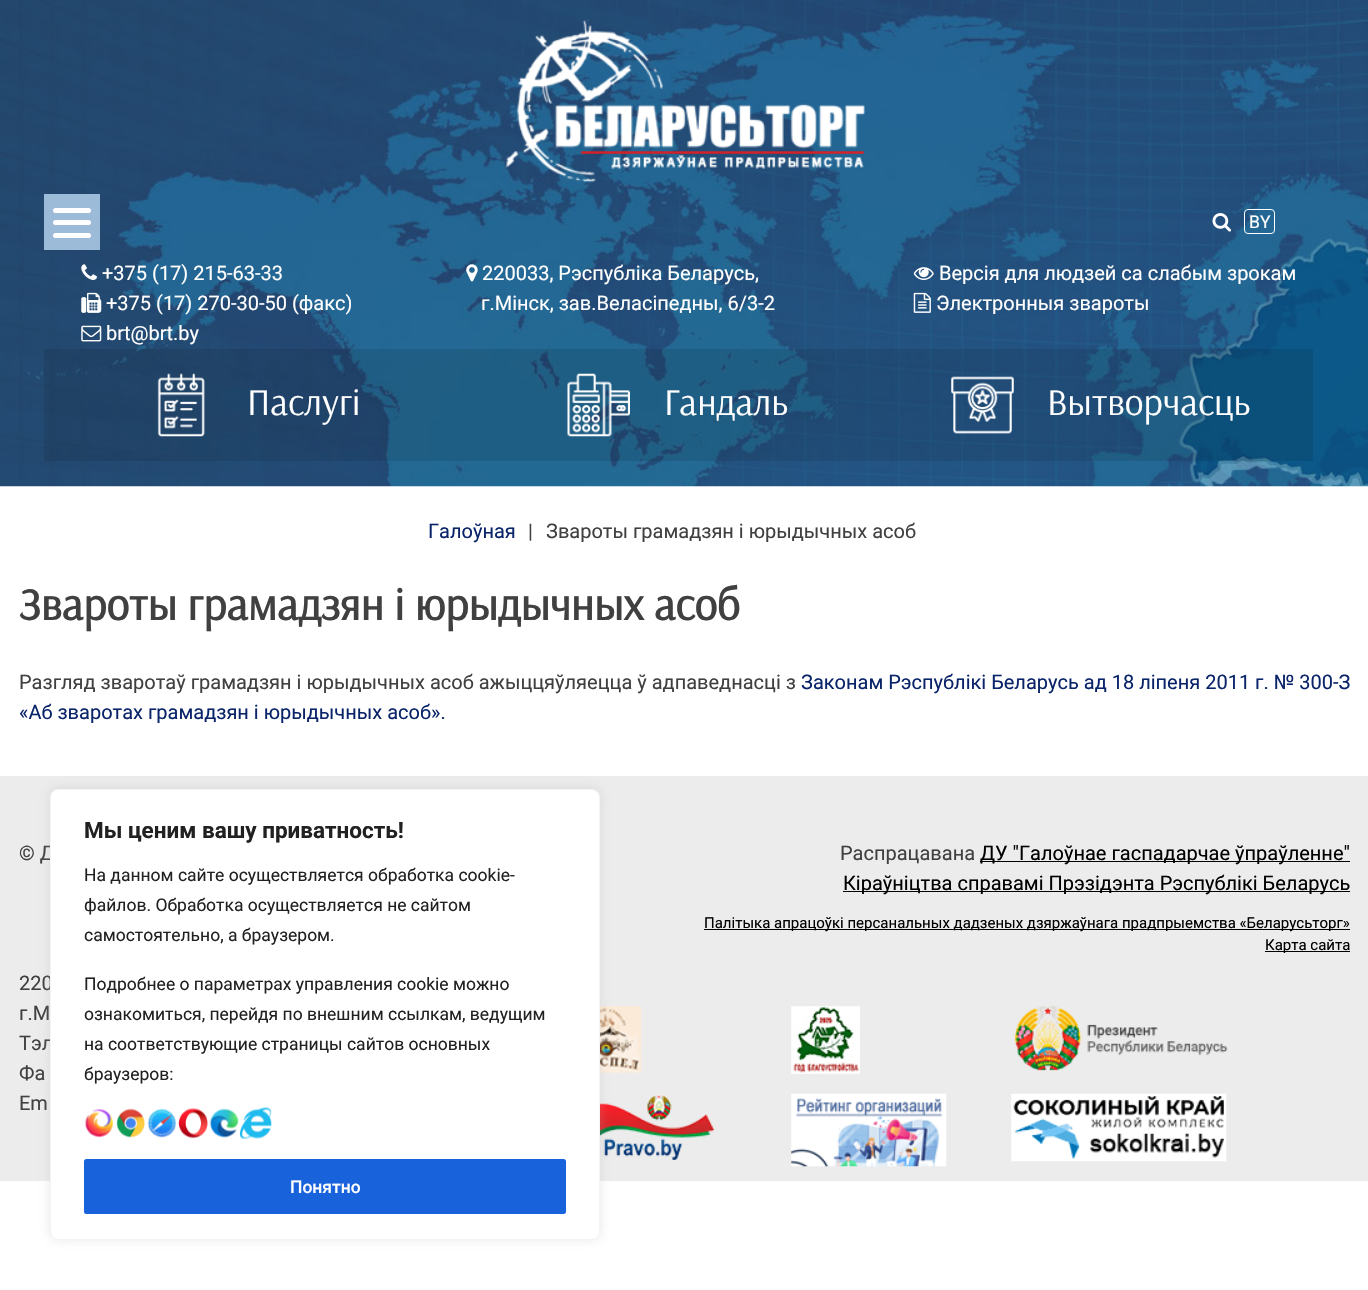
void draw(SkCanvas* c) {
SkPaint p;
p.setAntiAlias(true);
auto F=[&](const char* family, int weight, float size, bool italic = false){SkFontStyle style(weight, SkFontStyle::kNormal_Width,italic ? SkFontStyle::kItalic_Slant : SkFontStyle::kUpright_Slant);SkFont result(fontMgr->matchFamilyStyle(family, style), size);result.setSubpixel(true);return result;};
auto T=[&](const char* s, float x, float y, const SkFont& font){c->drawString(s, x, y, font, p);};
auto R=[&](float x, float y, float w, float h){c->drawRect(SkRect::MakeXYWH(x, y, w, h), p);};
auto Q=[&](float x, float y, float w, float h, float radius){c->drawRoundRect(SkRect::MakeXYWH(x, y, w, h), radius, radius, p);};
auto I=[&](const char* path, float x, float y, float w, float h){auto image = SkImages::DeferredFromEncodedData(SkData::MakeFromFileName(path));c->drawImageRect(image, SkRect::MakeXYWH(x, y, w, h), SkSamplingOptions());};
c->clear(0xffffffff);
I("1.png",0,0,1368,487);
I("2.png",505,20,360,162);
p.setColor(0xff9cbbd8);
R(44,194,56,56);
p.setColor(0xffffffff);
Q(53,208,38,5,2.5);
Q(53,220,38,5,2.5);
Q(53,233,38,5,2.5);
I("3.png",1212,213,20,19);
p.setStroke(true);
p.setStrokeWidth(1);
c->drawRoundRect(SkRect::MakeXYWH(1244.5,209.5,30,24),3.5,3.5,p);
auto f1 = F("Roboto",400,17.5);
p.setStroke(false);
T("BY",1249,228,f1);
I("4.png",81,264,16,16);
auto f2 = F("Roboto",400,20);
T("+375 (17) 215-63-33",102,280,f2);
I("5.png",81,292,21,21);
T("+375 (17) 270-30-50 (факс)",106,310,f2);
I("6.png",81,325,21,17);
T("brt@brt.by",106,340,f2);
I("7.png",466,264,12,18);
T("220033, Рэспубліка Беларусь,",482,280,f2);
T("г.Мінск, зав.Веласіпедны, 6/3-2",481,310,f2);
I("8.png",913,267,21,13);
T("Версія для людзей са слабым зрокам",939,280,f2);
I("9.png",913,292,18,21);
T("Электронныя звароты",936,310,f2);
p.setColor(0x1a000000);
R(44,349,422,112);
I("10.png",157,373,48,64);
auto f3 = F("Arsenal",400,37.5);
p.setColor(0xffffffff);
T("Паслугi",247,415,f3);
p.setColor(0x1a000000);
R(466,349,424,112);
I("11.png",567,373,63,64);
p.setColor(0xffffffff);
T("Гандаль",664,415,f3);
p.setColor(0x1a000000);
R(890,349,423,112);
I("12.png",951,376,63,58);
p.setColor(0xffffffff);
T("Вытворчасць",1047,415,f3);
p.setColor(0xff0a246a);
T("Галоўная",428,538,f2);
p.setColor(0xff404040);
T("|",528,538,f2);
T("Звароты грамадзян і юрыдычных асоб",546,538,f2);
auto f4 = F("Arsenal",700,45);
T("Звароты грамадзян і юрыдычных асоб",19,620,f4);
T("Разгляд зваротаў грамадзян і юрыдычных асоб ажыццяўляецца ў адпаведнасці з",19,689,f2);
p.setColor(0xff0a246a);
T("Законам Рэспублікі Беларусь ад 18 ліпеня 2011 г. № 300-З",801,689,f2);
T("«Аб зваротах грамадзян і юрыдычных асоб».",19,719,f2);
p.setColor(0xffececec);
R(0,776,1368,405);
p.setColor(0xff404040);
T("© Д",19,860,f2);
T("Распрацавана",840,860,f2);
p.setColor(0xff000000);
R(980,861,370,1);
T("ДУ \"Галоўнае гаспадарчае ўпраўленне\"",980,860,f2);
R(843,891,507,1);
T("Кіраўніцтва справамі Прэзідэнта Рэспублікі Беларусь",843,890,f2);
R(704,929,646,1);
auto f5 = F("Roboto",400,15);
T("Палітыка апрацоўкі персанальных дадзеных дзяржаўнага прадпрыемства «Беларусьторг»",704,928,f5);
R(1265,951,85,1);
T("Карта сайта",1265,950,f5);
p.setColor(0xff404040);
T("220",19,990,f2);
T("г.М",19,1020,f2);
T("Тэл",19,1050,f2);
T("Фа",19,1080,f2);
T("Em",19,1110,f2);
I("13.png",600,1006,42,67);
I("14.png",791,1006,69,68);
I("15.png",1014,1006,214,65);
I("16.png",600,1094,114,66);
I("17.png",791,1093,156,74);
I("18.png",1011,1093,216,69);
p.setColor(0x4dacabab);
p.setMaskFilter(SkMaskFilter::MakeBlur(kNormal_SkBlurStyle, 6));
c->drawRoundRect(SkRect::MakeXYWH(50,788,550,451),8,8,p);
p.setMaskFilter(nullptr);
p.setColor(0xffffffff);
c->drawRoundRect(SkRect::MakeXYWH(50.5,789.5,549,450),7.5,7.5,p);
p.setStroke(true);
p.setColor(0xfff4f4f4);
c->drawRoundRect(SkRect::MakeXYWH(50.5,789.5,549,450),7.5,7.5,p);
auto f6 = F("Roboto",700,22.5);
p.setStroke(false);
p.setColor(0xff212121);
T("Мы ценим вашу приватность!",84,838,f6);
T("На данном сайте осуществляется обработка cookie-",84,881,f1);
T("файлов. Обработка осуществляется не сайтом",84,911,f1);
T("самостоятельно, а браузером.",84,941,f1);
T("Подробнее о параметрах управления cookie можно",84,990,f1);
T("ознакомиться, перейдя по внешним ссылкам, ведущим",84,1020,f1);
T("на соответствующие страницы сайтов основных",84,1050,f1);
T("браузеров:",84,1080,f1);
I("19.png",84,1108,30,30);
I("20.png",116,1108,29,30);
I("21.png",147,1108,30,30);
I("22.png",178,1108,30,31);
I("23.png",209,1108,30,30);
I("24.png",240,1107,32,33);
p.setColor(0xff1863dc);
c->drawRoundRect(SkRect::MakeXYWH(85.5,1160.5,479,52),1,1,p);
p.setStroke(true);
p.setStrokeWidth(3);
c->drawRoundRect(SkRect::MakeXYWH(85.5,1160.5,479,52),1,1,p);
auto f7 = F("Roboto",500,17.5);
p.setStroke(false);
p.setColor(0xffffffff);
T("Понятно",290,1193,f7);
}
